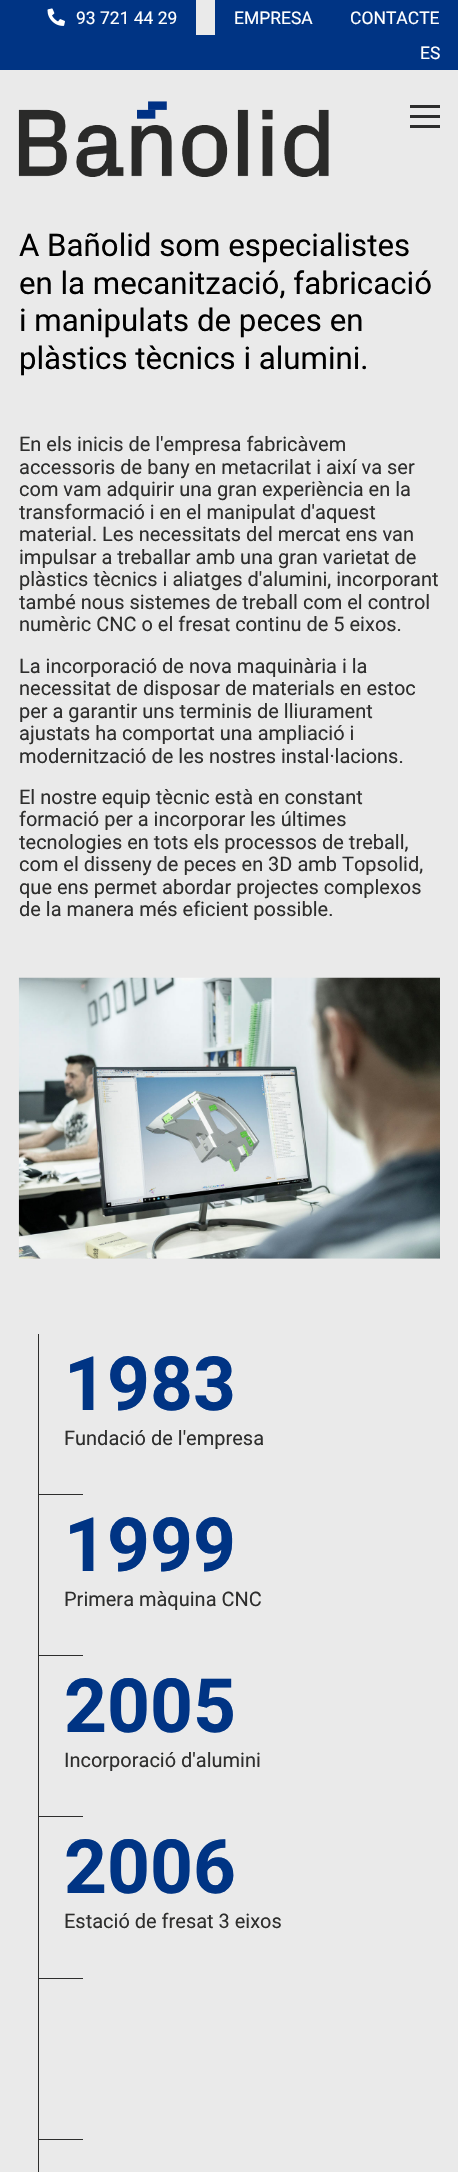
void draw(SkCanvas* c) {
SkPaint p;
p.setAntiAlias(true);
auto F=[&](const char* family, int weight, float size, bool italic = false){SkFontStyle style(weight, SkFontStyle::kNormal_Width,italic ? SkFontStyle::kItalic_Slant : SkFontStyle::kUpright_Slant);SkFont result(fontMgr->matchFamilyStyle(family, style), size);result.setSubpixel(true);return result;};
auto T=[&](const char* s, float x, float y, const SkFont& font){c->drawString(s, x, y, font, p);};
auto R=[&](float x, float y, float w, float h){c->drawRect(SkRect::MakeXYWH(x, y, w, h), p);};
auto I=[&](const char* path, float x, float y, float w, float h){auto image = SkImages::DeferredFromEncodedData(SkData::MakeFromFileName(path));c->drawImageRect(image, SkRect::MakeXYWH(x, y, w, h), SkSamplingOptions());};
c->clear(0xffeaeaea);
p.setColor(0xff003484);
R(0,0,458,70);
p.setColor(0xffeaeaea);
R(196,0,19,35);
I("1.png",47,8,18,18);
auto f1 = F("Roboto",400,17.5);
p.setColor(0xffffffff);
T("93 721 44 29",76,24,f1);
T("EMPRESA",234,24,f1);
T("CONTACTE",350,24,f1);
T("ES",420,59,f1);
I("2.png",18,101,311,76);
p.setColor(0xff2e2e2d);
R(410,105,30,3);
R(410,115,30,3);
R(410,125,30,3);
auto f2 = F("Roboto",400,31.25);
p.setColor(0xff000000);
T("A Bañolid som especialistes",19,256,f2);
T("en la mecanització, fabricació",19,294,f2);
T("i manipulats de peces en",19,331,f2);
T("plàstics tècnics i alumini.",19,369,f2);
auto f3 = F("Roboto",400,20);
p.setColor(0xff2e2e2d);
T("En els inicis de l'empresa fabricàvem",19,451,f3);
T("accessoris de bany en metacrilat i així va ser",19,474,f3);
T("com vam adquirir una gran experiència en la",19,496,f3);
T("transformació i en el manipulat d'aquest",19,519,f3);
T("material. Les necessitats del mercat ens van",19,541,f3);
T("impulsar a treballar amb una gran varietat de",19,564,f3);
T("plàstics tècnics i aliatges d'alumini, incorporant",19,586,f3);
T("també nous sistemes de treball com el control",19,609,f3);
T("numèric CNC o el fresat continu de 5 eixos.",19,631,f3);
T("La incorporació de nova maquinària i la",19,673,f3);
T("necessitat de disposar de materials en estoc",19,695,f3);
T("per a garantir uns terminis de lliurament",19,718,f3);
T("ajustats ha comportat una ampliació i",19,740,f3);
T("modernització de les nostres instal·lacions.",19,763,f3);
T("El nostre equip tècnic està en constant",19,804,f3);
T("formació per a incorporar les últimes",19,826,f3);
T("tecnologies en tots els processos de treball,",19,849,f3);
T("com el disseny de peces en 3D amb Topsolid,",19,871,f3);
T("que ens permet abordar projectes complexos",19,894,f3);
T("de la manera més eficient possible.",19,916,f3);
I("3.png",18,977,422,282);
R(38,1334,1,838);
auto f4 = F("Roboto",700,75);
p.setColor(0xff003484);
T("1983",64,1410,f4);
p.setColor(0xff2e2e2d);
T("Fundació de l'empresa",64,1445,f3);
R(39,1494,44,1);
p.setColor(0xff003484);
T("1999",64,1571,f4);
p.setColor(0xff2e2e2d);
T("Primera màquina CNC",64,1606,f3);
R(39,1655,44,1);
p.setColor(0xff003484);
T("2005",64,1732,f4);
p.setColor(0xff2e2e2d);
T("Incorporació d'alumini",64,1767,f3);
R(39,1816,44,1);
p.setColor(0xff003484);
T("2006",64,1893,f4);
p.setColor(0xff2e2e2d);
T("Estació de fresat 3 eixos",64,1928,f3);
R(39,1978,44,1);
R(39,2139,44,1);
}
